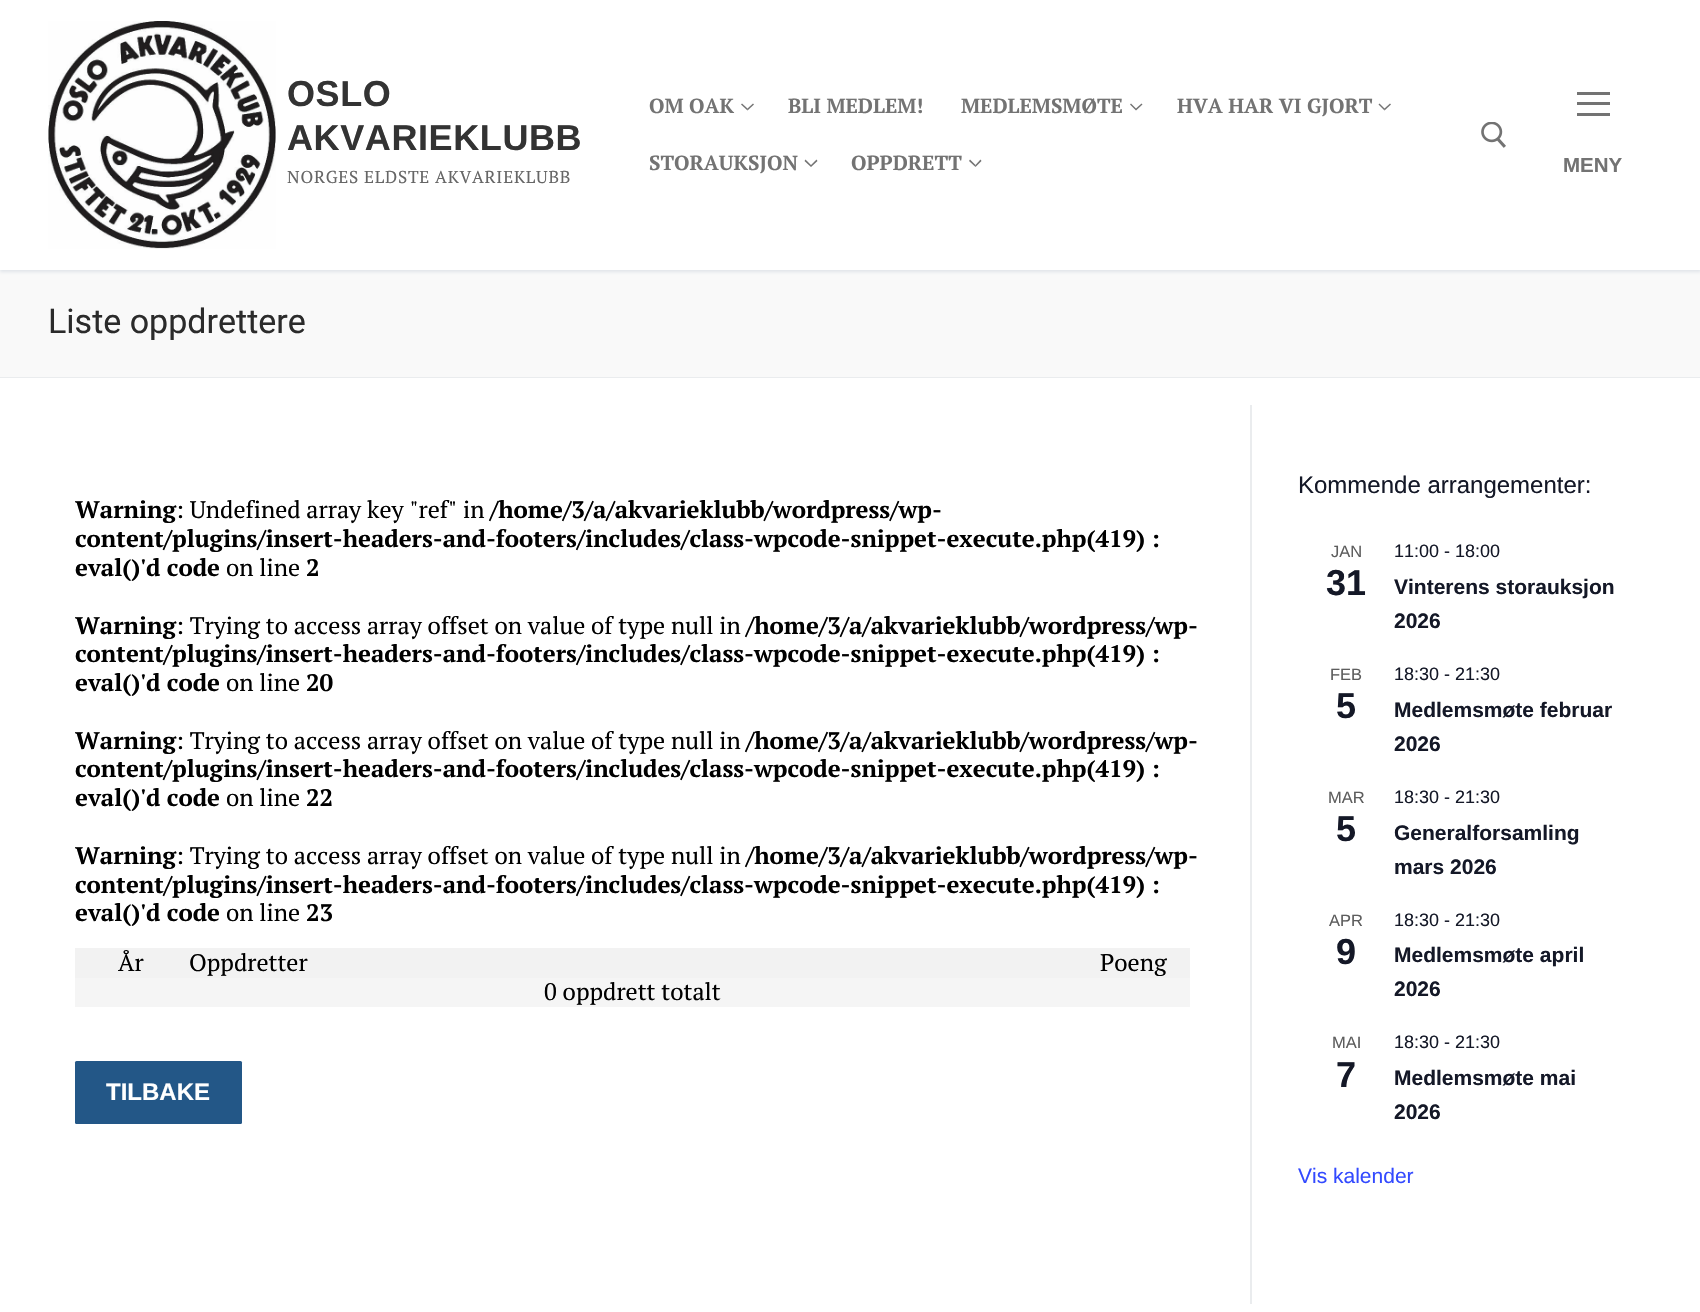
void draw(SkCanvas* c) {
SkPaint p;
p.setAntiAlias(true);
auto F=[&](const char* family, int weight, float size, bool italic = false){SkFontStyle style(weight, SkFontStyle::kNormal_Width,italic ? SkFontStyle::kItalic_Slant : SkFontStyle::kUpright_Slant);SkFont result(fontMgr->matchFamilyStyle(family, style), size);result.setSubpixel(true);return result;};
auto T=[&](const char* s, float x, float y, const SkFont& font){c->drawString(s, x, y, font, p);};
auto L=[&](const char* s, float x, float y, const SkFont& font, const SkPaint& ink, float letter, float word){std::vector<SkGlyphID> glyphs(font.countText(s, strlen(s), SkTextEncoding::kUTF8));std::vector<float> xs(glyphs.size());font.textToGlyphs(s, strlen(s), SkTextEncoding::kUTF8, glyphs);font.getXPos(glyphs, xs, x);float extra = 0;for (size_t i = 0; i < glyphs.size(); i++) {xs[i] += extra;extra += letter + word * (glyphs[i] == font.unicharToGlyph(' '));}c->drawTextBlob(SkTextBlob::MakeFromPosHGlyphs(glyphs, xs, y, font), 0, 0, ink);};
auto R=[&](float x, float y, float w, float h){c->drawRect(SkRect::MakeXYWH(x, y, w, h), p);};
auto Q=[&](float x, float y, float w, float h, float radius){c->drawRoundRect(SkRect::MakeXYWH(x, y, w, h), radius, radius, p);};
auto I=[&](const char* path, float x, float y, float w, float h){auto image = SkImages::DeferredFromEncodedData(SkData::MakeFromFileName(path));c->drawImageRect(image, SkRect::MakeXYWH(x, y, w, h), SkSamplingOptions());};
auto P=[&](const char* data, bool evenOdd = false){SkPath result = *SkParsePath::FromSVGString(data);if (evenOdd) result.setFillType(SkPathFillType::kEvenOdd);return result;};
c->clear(0xffffffff);
p.setColor(0xfff9f9f9);
R(0,270,1700,107);
c->save();
c->clipRect(SkRect::MakeXYWH(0,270,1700,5));
p.setColor(0xffe1e5ea);
p.setMaskFilter(SkMaskFilter::MakeBlur(kNormal_SkBlurStyle, 1.5));
c->drawRect(SkRect::MakeXYWH(0,2,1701,270),p);
p.setMaskFilter(nullptr);
c->restore();
I("1.png",48,21,228,228);
auto f1 = F("Liberation Sans",700,36);
p.setColor(0xff333333);
L("OSLO",287,106,f1,p,.6,0);
L("AKVARIEKLUBB",287,150,f1,p,.6,0);
auto f2 = F("PT Serif",400,17.25);
p.setColor(0xff666666);
L("NORGES ELDSTE AKVARIEKLUBB",287,183,f2,p,.75,0);
auto f3 = F("PT Serif",700,20.5);
p.setColor(0xff737373);
T("OM OAK",649,113,f3);
c->drawPath(P("M747.5 110.5l-6.5-6l1-1l5.5 5z"),p);
p.setColor(0x8c000000);
c->drawPath(P("M754 104.5l-6.5 6v-2l5.5-5z"),p);
p.setColor(0xff737373);
T("BLI MEDLEM!",788,113,f3);
T("MEDLEMSMØTE",961,113,f3);
c->drawPath(P("M1136 110.5l-6-6l1-1l5 5zm6.5-6l-6.5 6v-2l5.5-5z"),p);
T("HVA HAR VI GJORT",1177,113,f3);
c->drawPath(P("M1384.5 110.5l-6-6l1-1l5 5z"),p);
p.setColor(0x8c000000);
c->drawPath(P("M1391 104.5l-6.5 6v-2l5.5-5z"),p);
p.setColor(0xff737373);
T("STORAUKSJON",649,170,f3);
c->drawPath(P("M811 167l-6.5-6l1-1.5l5.5 5.5zm6.5-6l-6.5 6v-2l5.5-5.5z"),p);
T("OPPDRETT",851,170,f3);
c->drawPath(P("M975.5 167l-6.5-6l1-1.5l5.5 5.5z"),p);
p.setColor(0x8c000000);
c->drawPath(P("M981.5 161l-6 6v-2l5-5.5z"),p);
I("2.png",1481,122,25,26);
p.setColor(0xff737373);
R(1577,102,33,3);
R(1577,92,33,3);
R(1577,113,33,3);
auto f4 = F("Liberation Sans",700,20.5);
T("MENY",1563,172,f4);
p.setColor(0xffeaecee);
R(0,377,1700,1);
auto f5 = F("Roboto",400,34);
p.setColor(0xff2b2b2b);
T("Liste oppdrettere",48,333,f5);
p.setColor(0xffeaecee);
R(1250,405,2,899);
auto f6 = F("PT Serif",700,24);
p.setColor(0xff000000);
T("Warning",75,518,f6);
auto f7 = F("PT Serif",400,24);
T(": Undefined array key \"ref\" in",176,518,f7);
T("/home/3/a/akvarieklubb/wordpress/wp-",490,518,f6);
T("content/plugins/insert-headers-and-footers/includes/class-wpcode-snippet-execute.php(419) :",75,547,f6);
T("eval()'d code",75,576,f6);
T("on line",226,576,f7);
T("2",306,576,f6);
T("Warning",75,634,f6);
T(": Trying to access array offset on value of type null in",176,634,f7);
T("/home/3/a/akvarieklubb/wordpress/wp-",746,634,f6);
T("content/plugins/insert-headers-and-footers/includes/class-wpcode-snippet-execute.php(419) :",75,662,f6);
T("eval()'d code",75,691,f6);
T("on line",226,691,f7);
T("20",306,691,f6);
T("Warning",75,749,f6);
T(": Trying to access array offset on value of type null in",176,749,f7);
T("/home/3/a/akvarieklubb/wordpress/wp-",746,749,f6);
T("content/plugins/insert-headers-and-footers/includes/class-wpcode-snippet-execute.php(419) :",75,777,f6);
T("eval()'d code",75,806,f6);
T("on line",226,806,f7);
T("22",306,806,f6);
T("Warning",75,864,f6);
T(": Trying to access array offset on value of type null in",176,864,f7);
T("/home/3/a/akvarieklubb/wordpress/wp-",746,864,f6);
T("content/plugins/insert-headers-and-footers/includes/class-wpcode-snippet-execute.php(419) :",75,893,f6);
T("eval()'d code",75,921,f6);
T("on line",226,921,f7);
T("23",306,921,f6);
p.setColor(0xfff2f2f2);
R(75,948,1115,30);
p.setColor(0xff000000);
T("År",118,971,f7);
T("Oppdretter",189,971,f7);
T("Poeng",1100,971,f7);
p.setColor(0xfff5f5f5);
R(75,978,1115,29);
p.setColor(0xff000000);
T("0 oppdrett totalt",544,1000,f7);
p.setColor(0xff235787);
Q(75,1061,167,63,1.5);
auto f8 = F("Liberation Sans",700,24);
p.setColor(0xffffffff);
T("TILBAKE",106,1100,f8);
auto f9 = F("Liberation Sans",400,24);
p.setColor(0xff141827);
T("Kommende arrangementer:",1298,493,f9);
auto f10 = F("Liberation Sans",400,16.5);
p.setColor(0xff5d5d5d);
T("JAN",1331,557,f10);
p.setColor(0xff141827);
T("31",1326,595,f1);
auto f11 = F("Liberation Sans",400,18);
T("11:00 - 18:00",1394,557,f11);
auto f12 = F("Liberation Sans",700,21);
T("Vinterens storauksjon",1394,594,f12);
T("2026",1394,628,f12);
p.setColor(0xff5d5d5d);
T("FEB",1330,680,f10);
p.setColor(0xff141827);
T("5",1336,718,f1);
T("18:30 - 21:30",1394,680,f11);
T("Medlemsmøte februar",1394,717,f12);
T("2026",1394,751,f12);
p.setColor(0xff5d5d5d);
T("MAR",1328,803,f10);
p.setColor(0xff141827);
T("5",1336,841,f1);
T("18:30 - 21:30",1394,803,f11);
T("Generalforsamling",1394,840,f12);
T("mars 2026",1394,874,f12);
p.setColor(0xff5d5d5d);
T("APR",1329,926,f10);
p.setColor(0xff141827);
T("9",1336,964,f1);
T("18:30 - 21:30",1394,926,f11);
T("Medlemsmøte april",1394,962,f12);
T("2026",1394,996,f12);
p.setColor(0xff5d5d5d);
T("MAI",1332,1048,f10);
p.setColor(0xff141827);
T("7",1336,1087,f1);
T("18:30 - 21:30",1394,1048,f11);
T("Medlemsmøte mai",1394,1085,f12);
T("2026",1394,1119,f12);
auto f13 = F("Liberation Sans",400,21);
p.setColor(0xff334aff);
T("Vis kalender",1298,1183,f13);
}
